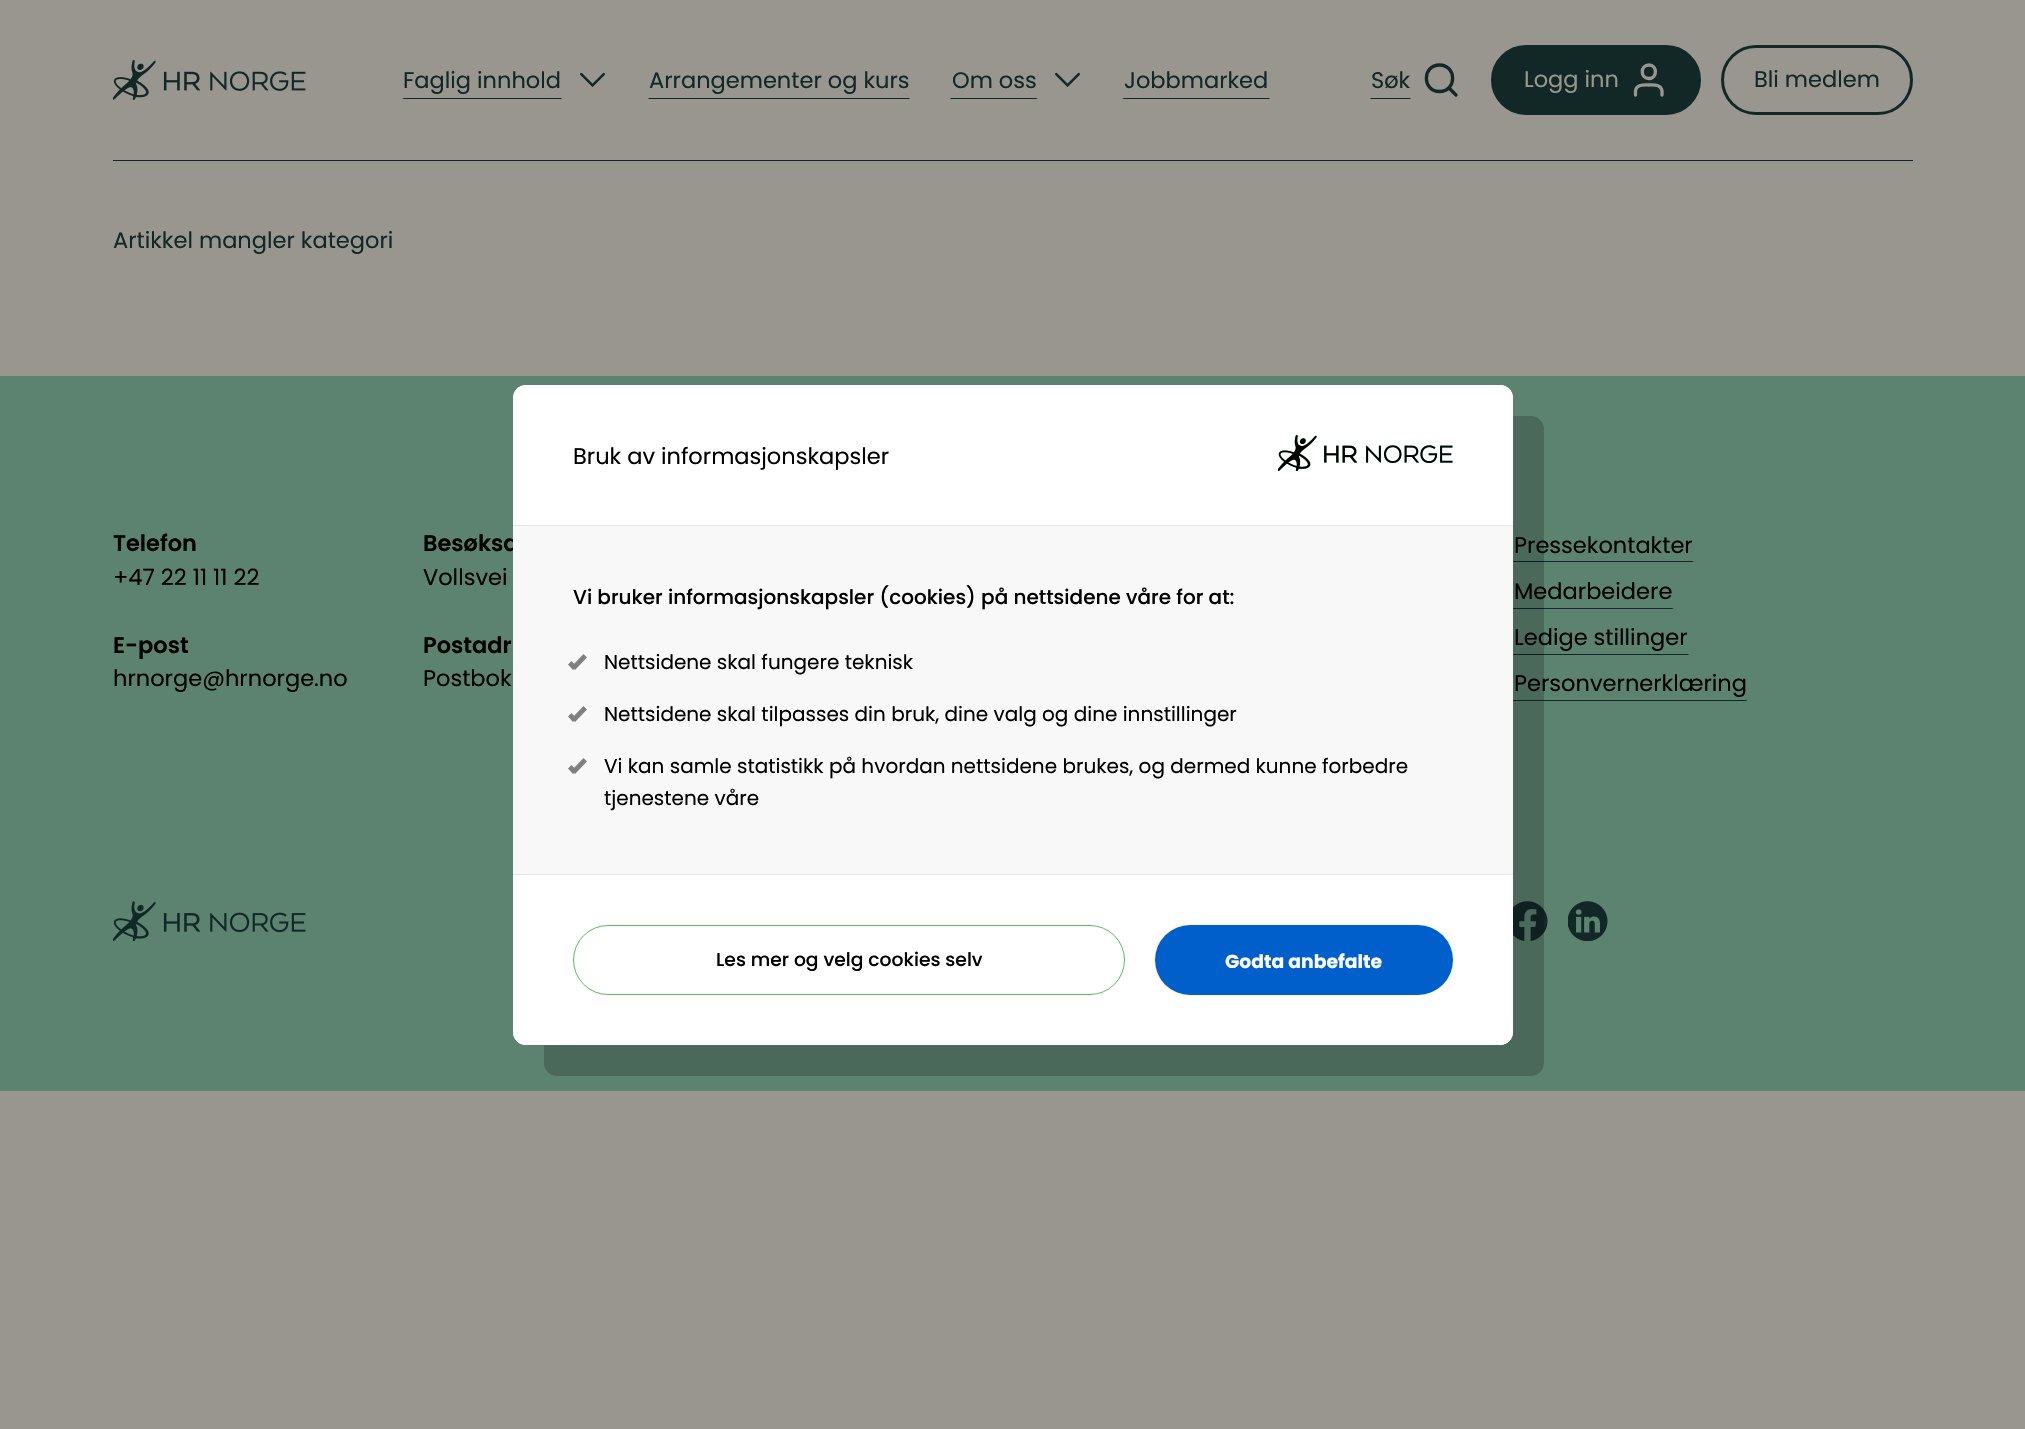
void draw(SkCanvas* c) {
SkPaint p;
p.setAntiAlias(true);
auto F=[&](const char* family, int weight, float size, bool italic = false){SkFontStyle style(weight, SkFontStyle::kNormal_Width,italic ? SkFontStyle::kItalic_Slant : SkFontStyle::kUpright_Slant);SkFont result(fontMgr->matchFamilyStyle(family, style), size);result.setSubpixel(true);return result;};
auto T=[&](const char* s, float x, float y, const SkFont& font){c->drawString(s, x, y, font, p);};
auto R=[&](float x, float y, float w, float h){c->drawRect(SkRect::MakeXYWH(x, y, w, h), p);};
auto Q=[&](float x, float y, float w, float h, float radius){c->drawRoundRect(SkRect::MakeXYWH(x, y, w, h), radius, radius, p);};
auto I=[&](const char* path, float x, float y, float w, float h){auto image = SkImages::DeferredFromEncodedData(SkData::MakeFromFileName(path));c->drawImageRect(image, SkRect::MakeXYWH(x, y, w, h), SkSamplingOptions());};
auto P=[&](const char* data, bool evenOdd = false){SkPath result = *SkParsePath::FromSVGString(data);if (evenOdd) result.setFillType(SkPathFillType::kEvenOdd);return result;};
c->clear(0xff99968f);
p.setColor(0xff112826);
R(113,160,1800,1);
I("1.png",113,60,193,40);
c->drawPath(P("M562 99h-160l2-1h157z"),p);
auto f1 = F("Poppins",400,22.5);
T("Faglig innhold",403,88,f1);
I("2.png",580,72,25,15);
c->drawPath(P("M910 99h-262l1-1h260z"),p);
T("Arrangementer og kurs",649,88,f1);
c->drawPath(P("M1038 99h-88l1-1h85z"),p);
T("Om oss",952,88,f1);
I("2.png",1055,72,25,15);
c->drawPath(P("M1270 99h-148l2-1h145z"),p);
T("Jobbmarked",1124,88,f1);
c->drawPath(P("M1411 99h-41l1-1h39z"),p);
T("Søk",1371,88,f1);
p.setStroke(true);
p.setStrokeWidth(3.3);
p.setStrokeCap(SkPaint::kRound_Cap);
p.setStrokeJoin(SkPaint::kRound_Join);
c->drawPath(P("M1439.5 91.5c17.5 0 17.5-26.5 0-26.5c-17.5 0-17.5 26.5 0 26.5zm16.5 3.5l-7-7"),p);
p.setStroke(false);
c->drawRoundRect(SkRect::MakeXYWH(1492.5,46.5,207,67),33.5,33.5,p);
p.setStroke(true);
p.setStrokeWidth(3);
p.setStrokeCap(SkPaint::kButt_Cap);
p.setStrokeJoin(SkPaint::kMiter_Join);
c->drawRoundRect(SkRect::MakeXYWH(1492.5,46.5,207,67),33.5,33.5,p);
p.setStroke(false);
p.setColor(0xff99968f);
T("Logg inn",1524,87,f1);
p.setStroke(true);
p.setStrokeWidth(3.3);
p.setStrokeCap(SkPaint::kRound_Cap);
p.setStrokeJoin(SkPaint::kRound_Join);
c->drawPath(P("M1662 95v-4.5c-1.5-6.5-8.5-5.5-13-5.5c-5 0-12-1-13.5 5.5v4.5m13.5-16.5c8.5 0 8.5-13.5 0-13.5c-9 0-9 13.5 0 13.5z"),p);
p.setStrokeWidth(3);
p.setStrokeCap(SkPaint::kButt_Cap);
p.setStrokeJoin(SkPaint::kMiter_Join);
p.setColor(0xff112826);
c->drawRoundRect(SkRect::MakeXYWH(1722.5,46.5,189,67),33.5,33.5,p);
p.setStroke(false);
T("Bli medlem",1754,87,f1);
T("Artikkel mangler kategori",113,248,f1);
p.setColor(0xff5c8370);
R(0,376,2025,715);
p.setColor(0xff112826);
c->drawPath(P("M1694 562h-182l2-1h178z"),p);
p.setColor(0xff000000);
T("Pressekontakter",1514,553,f1);
p.setColor(0xff112826);
c->drawPath(P("M1674 609h-162l2-1h158z"),p);
p.setColor(0xff000000);
T("Medarbeidere",1514,599,f1);
p.setColor(0xff112826);
c->drawPath(P("M1689 655h-177l2-1h174z"),p);
p.setColor(0xff000000);
T("Ledige stillinger",1514,645,f1);
p.setColor(0xff112826);
c->drawPath(P("M1748 701h-236l2-1h232z"),p);
p.setColor(0xff000000);
T("Personvernerklæring",1514,691,f1);
I("5.png",1513,901,35,40);
p.setColor(0x33000000);
c->drawPath(P("M544 1045v18c0 7 6 13 13 13h974c7 0 13-6 13-13v-634c0-7-6-13-13-13h-19v616c0 7-5 13-12 13z"),p);
auto f2 = F("Poppins",600,22.5);
p.setColor(0xff000000);
T("Besøksa",423,551,f2);
p.setColor(0xfff8f8f8);
Q(513,385,1000,660,13);
p.setColor(0x14000000);
c->drawPath(P("M513 525v1h1000v-128l-1-4v131z"),p);
p.setColor(0xffffffff);
c->drawPath(P("M526 385h974c7 0 13 6 13 13v127h-1000v-127c0-7 6-13 13-13z"),p);
p.setColor(0xff000000);
T("Bruk av informasjonskapsler",573,464,f1);
I("3.png",1278,435,175,36);
auto f3 = F("Poppins",500,20);
T("Vi bruker informasjonskapsler (cookies) på nettsidene våre for at:",573,604,f3);
p.setColor(0xff808080);
c->drawPath(P("M583.5 654l3.5 3.5l-12 12.5l-3.5-3.5z"),p);
c->drawPath(P("M571.5 661l5 5.5l-3.5 3.5l-5-5.5z"),p);
auto f4 = F("Poppins",400,20);
p.setColor(0xff000000);
T("Nettsidene skal fungere teknisk",604,669,f4);
p.setColor(0xff808080);
c->drawPath(P("M583.5 706l3.5 3.5l-12 12.5l-3.5-3.5z"),p);
c->drawPath(P("M571.5 713l5 5.5l-3.5 3.5l-5-5.5z"),p);
p.setColor(0xff000000);
T("Nettsidene skal tilpasses din bruk, dine valg og dine innstillinger",604,721,f4);
p.setColor(0xff808080);
c->drawPath(P("M583.5 758l3.5 3.5l-12 12.5l-3.5-3.5z"),p);
c->drawPath(P("M571.5 765l5 5.5l-3.5 3.5l-5-5.5z"),p);
p.setColor(0xff000000);
T("Vi kan samle statistikk på hvordan nettsidene brukes, og dermed kunne forbedre",604,773,f4);
T("tjenestene våre",604,805,f4);
p.setColor(0x14000000);
c->drawPath(P("M513 874h1000v158l-1 4v-161h-999z"),p);
p.setColor(0xffffffff);
c->drawPath(P("M513 875h1000v157c0 7-6 13-13 13h-974c-7 0-13-6-13-13z"),p);
p.setStroke(true);
p.setStrokeWidth(1);
p.setColor(0xff54ba5f);
c->drawRoundRect(SkRect::MakeXYWH(573.5,925.5,551,69),34.5,34.5,p);
auto f5 = F("Poppins",500,18.75);
p.setStroke(false);
p.setColor(0xff000000);
T("Les mer og velg cookies selv",716,966,f5);
p.setColor(0xff005fca);
Q(1155,925,298,70,35);
auto f6 = F("Poppins",700,18.75);
p.setColor(0xffffffff);
T("Godta anbefalte",1225,968,f6);
p.setColor(0xff000000);
T("Telefon",113,551,f2);
T("+47 22 11 11 22",113,585,f1);
T("E-post",113,653,f2);
T("hrnorge@hrnorge.no",113,686,f1);
T("Vollsvei",423,585,f1);
T("Postadr",423,653,f2);
T("Postbok",423,686,f1);
I("4.png",113,901,193,40);
I("6.png",1568,901,40,40);
}
